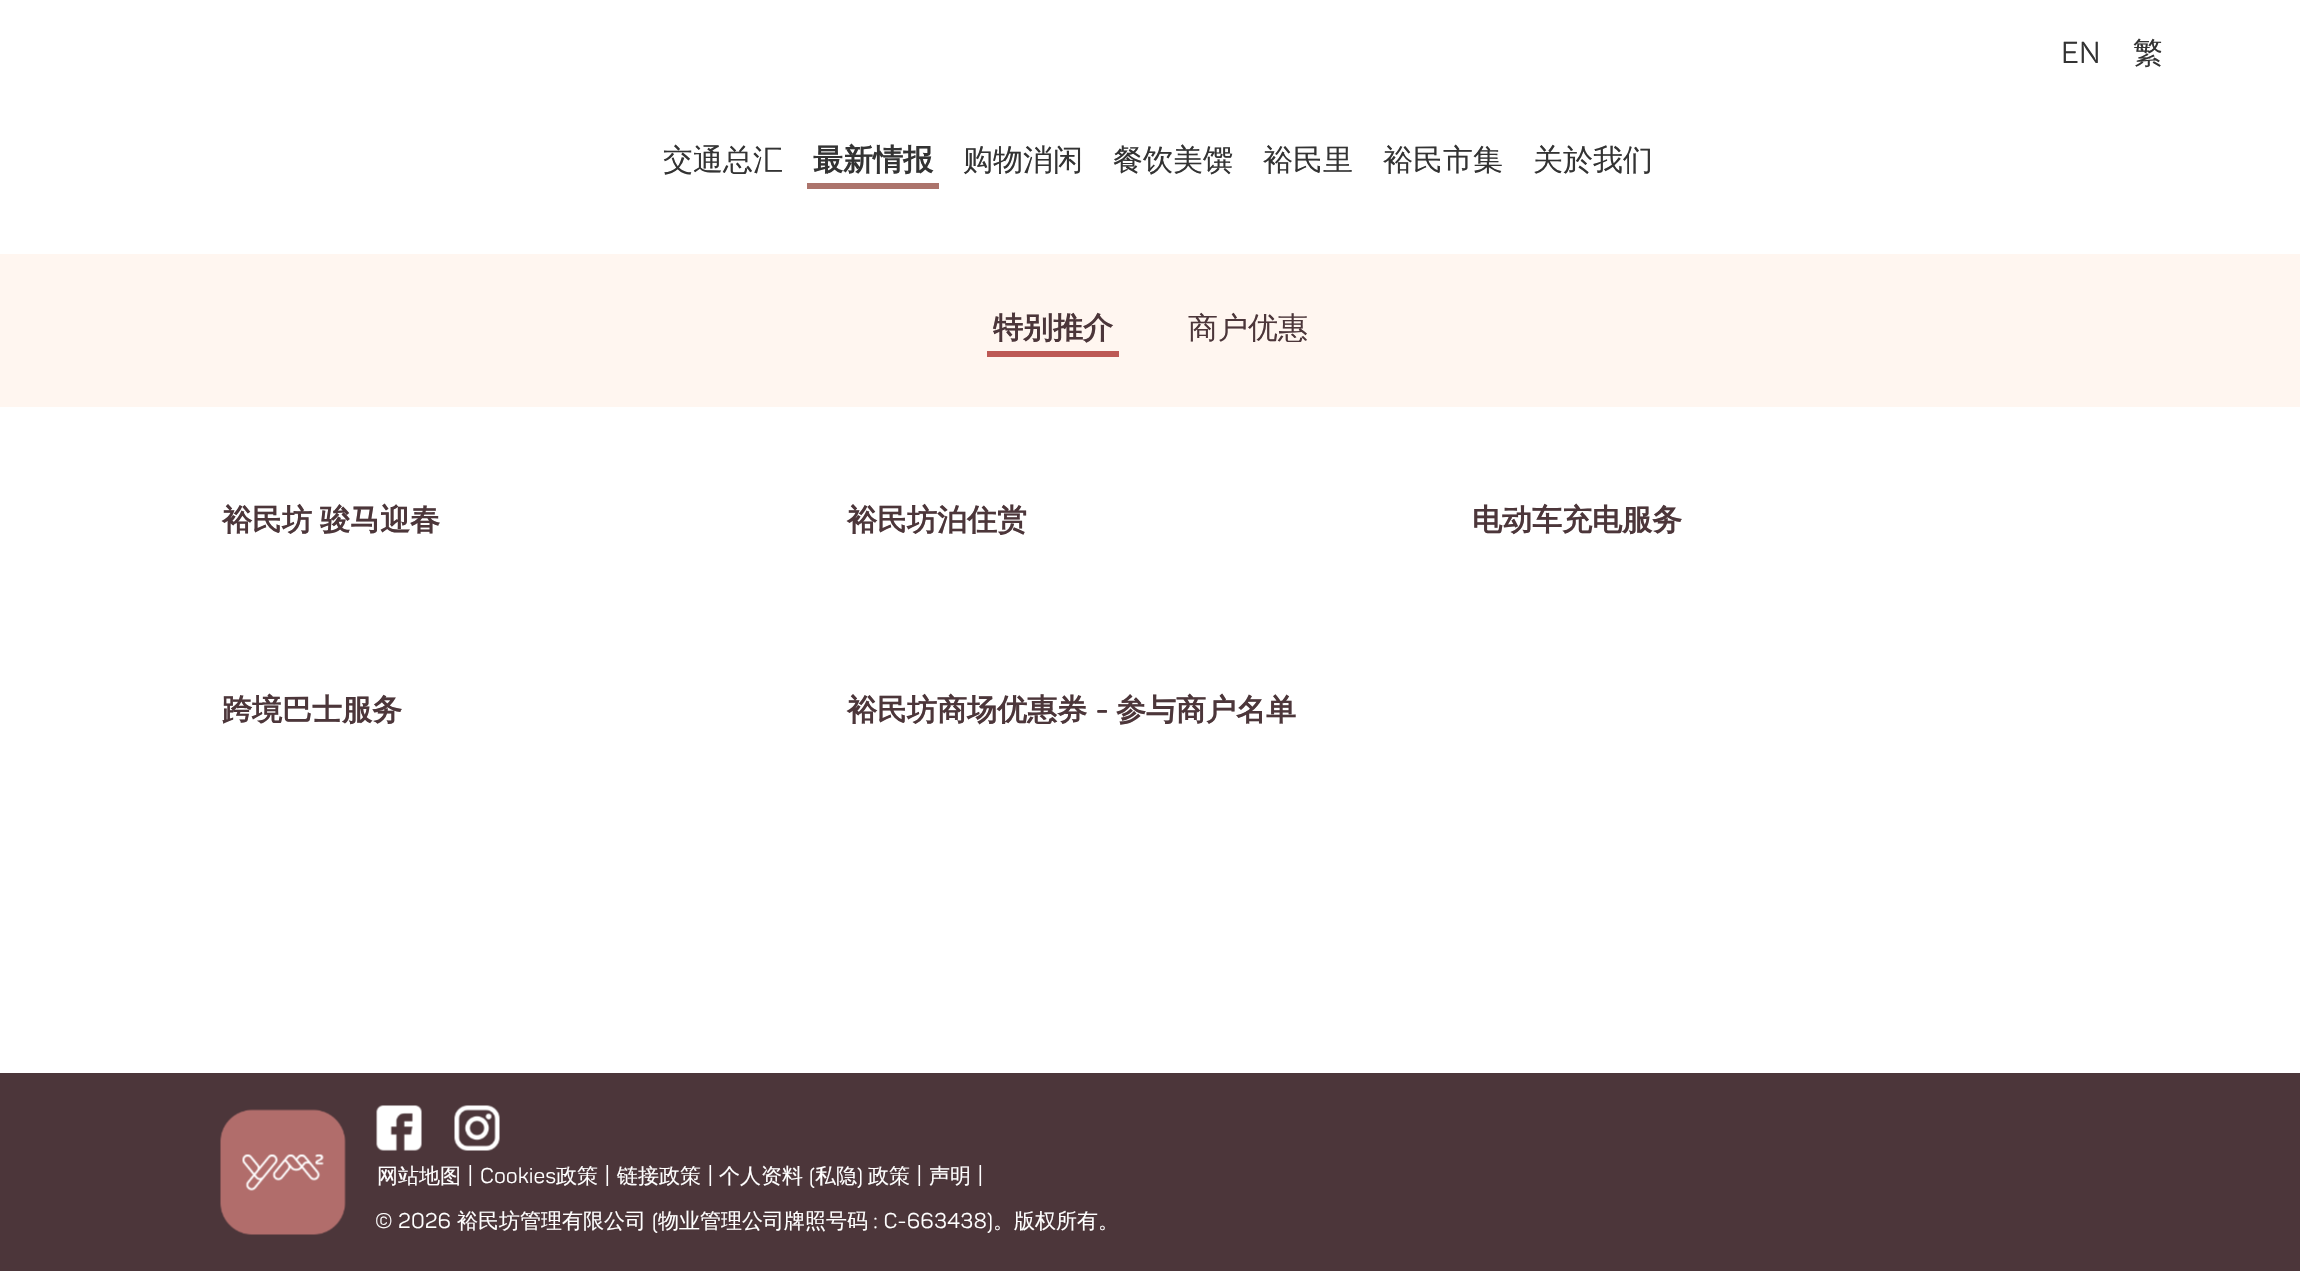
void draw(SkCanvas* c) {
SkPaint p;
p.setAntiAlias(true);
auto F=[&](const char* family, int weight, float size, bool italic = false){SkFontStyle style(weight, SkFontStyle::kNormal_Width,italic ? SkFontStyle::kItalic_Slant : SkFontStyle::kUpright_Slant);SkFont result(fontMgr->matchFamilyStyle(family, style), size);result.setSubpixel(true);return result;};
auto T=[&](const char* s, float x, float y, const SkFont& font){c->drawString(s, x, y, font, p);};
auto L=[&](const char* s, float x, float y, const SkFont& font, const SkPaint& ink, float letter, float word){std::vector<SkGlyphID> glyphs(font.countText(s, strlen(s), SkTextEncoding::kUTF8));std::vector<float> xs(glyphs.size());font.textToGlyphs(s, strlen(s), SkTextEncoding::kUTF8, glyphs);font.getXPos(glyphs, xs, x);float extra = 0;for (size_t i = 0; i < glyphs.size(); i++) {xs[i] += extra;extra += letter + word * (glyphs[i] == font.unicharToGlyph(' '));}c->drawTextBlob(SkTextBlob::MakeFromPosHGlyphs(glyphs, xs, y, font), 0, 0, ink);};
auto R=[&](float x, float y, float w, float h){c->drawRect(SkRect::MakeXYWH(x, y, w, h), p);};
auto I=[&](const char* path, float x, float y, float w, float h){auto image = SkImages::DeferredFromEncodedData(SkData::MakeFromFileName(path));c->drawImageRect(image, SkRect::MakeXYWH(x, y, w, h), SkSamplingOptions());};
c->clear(0xffffffff);
auto f1 = F("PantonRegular",400,30);
p.setColor(0xff333333);
T("EN",2061,63,f1);
auto f2 = F("WenQuanYi Zen Hei",500,30);
T("繁",2133,63,f2);
T("交通总汇",663,170,f2);
auto f3 = F("WenQuanYi Zen Hei",700,30);
T("最新情报",813,170,f3);
p.setColor(0xffac746c);
R(807,183,132,6);
p.setColor(0xff333333);
T("购物消闲",963,170,f2);
T("餐饮美馔",1113,170,f2);
T("裕民里",1263,170,f2);
T("裕民市集",1383,170,f2);
T("关於我们",1533,170,f2);
p.setColor(0xfffff6f0);
R(0,254,2300,153);
p.setColor(0xff4c363a);
T("特别推介",993,338,f3);
p.setColor(0xffbd5955);
R(987,351,132,6);
p.setColor(0xff4c363a);
T("商户优惠",1188,338,f2);
L("裕民坊 骏马迎春",222,530,f3,p,0,-1);
T("裕民坊泊住赏",847,530,f3);
T("电动车充电服务",1472,530,f3);
T("跨境巴士服务",222,720,f3);
T("裕民坊商场优惠券",847,720,f3);
auto f4 = F("PantonRegular",700,30);
T("-",1095,720,f4);
T("参与商户名单",1116,720,f3);
R(0,1073,2300,198);
I("1.png",220,1109,126,126);
I("2.png",376,1105,46,46);
I("3.png",454,1105,46,46);
auto f5 = F("WenQuanYi Zen Hei",500,21);
p.setColor(0xffffffff);
T("网站地图",377,1183,f5);
auto f6 = F("PantonRegular",400,21);
T("|",468,1183,f6);
T("Cookies",480,1183,f6);
T("政策",556,1183,f5);
T("|",605,1183,f6);
T("链接政策",617,1183,f5);
T("|",708,1183,f6);
T("个人资料",719,1183,f5);
T("(",809,1183,f6);
T("私隐",815,1183,f5);
T(")",857,1183,f6);
T("政策",868,1183,f5);
T("|",917,1183,f6);
T("声明",929,1183,f5);
T("|",978,1183,f6);
T("© 2026",375,1228,f6);
T("裕民坊管理有限公司",457,1228,f5);
T("(",652,1228,f6);
T("物业管理公司牌照号码",658,1228,f5);
T(": C-663438)",873,1228,f6);
T("。版权所有。",993,1228,f5);
}
